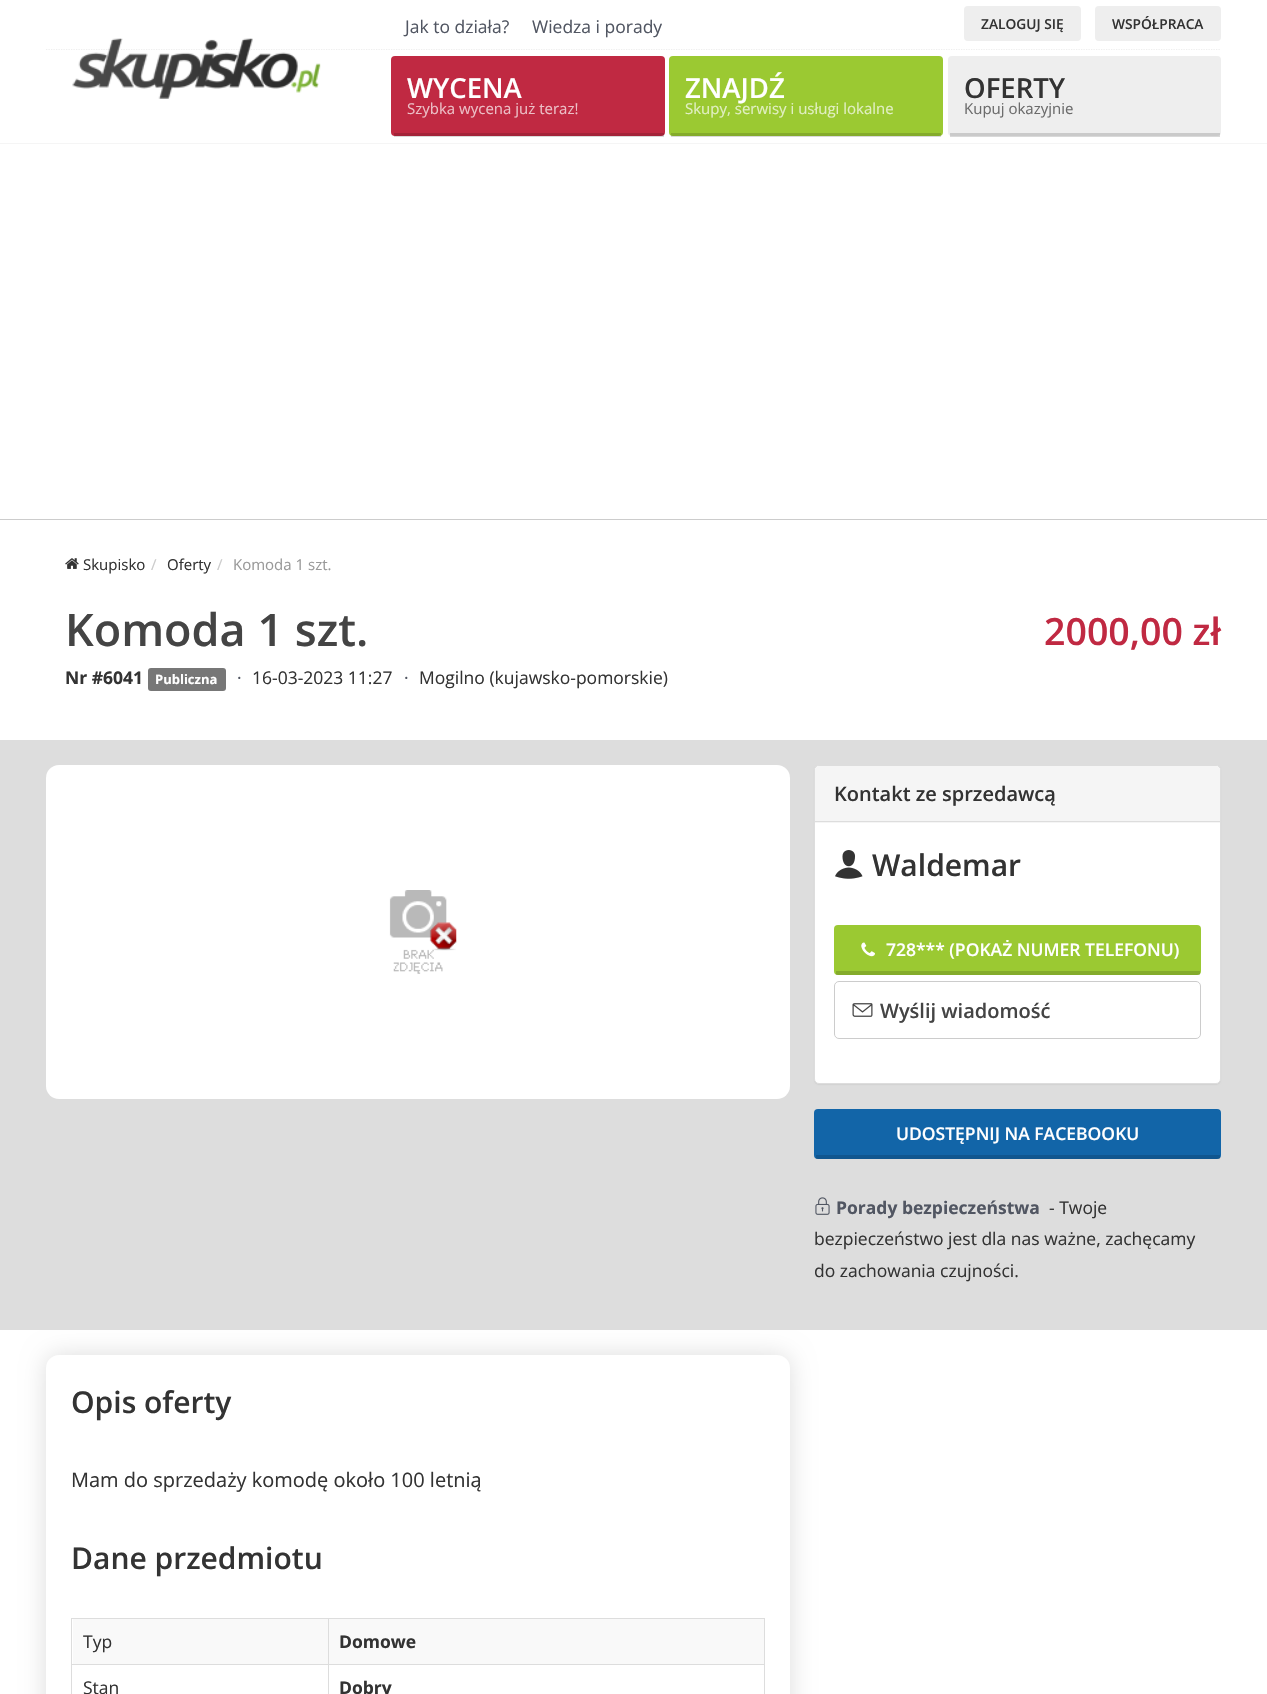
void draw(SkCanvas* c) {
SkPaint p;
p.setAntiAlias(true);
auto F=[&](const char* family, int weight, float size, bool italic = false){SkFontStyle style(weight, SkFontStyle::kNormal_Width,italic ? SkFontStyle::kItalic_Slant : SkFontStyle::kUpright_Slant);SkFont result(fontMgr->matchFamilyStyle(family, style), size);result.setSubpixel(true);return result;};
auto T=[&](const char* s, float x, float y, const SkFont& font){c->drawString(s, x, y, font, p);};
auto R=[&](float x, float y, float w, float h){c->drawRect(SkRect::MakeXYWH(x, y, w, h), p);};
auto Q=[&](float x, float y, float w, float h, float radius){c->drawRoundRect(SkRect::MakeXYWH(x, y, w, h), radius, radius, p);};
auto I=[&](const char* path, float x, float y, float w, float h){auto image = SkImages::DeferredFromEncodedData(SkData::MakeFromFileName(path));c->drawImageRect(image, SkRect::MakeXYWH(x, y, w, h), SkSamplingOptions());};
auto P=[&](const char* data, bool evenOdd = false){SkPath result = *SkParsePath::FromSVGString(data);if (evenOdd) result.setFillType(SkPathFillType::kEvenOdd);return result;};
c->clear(0xffffffff);
p.setColor(0xfff5f5f5);
R(0,143,1267,1);
p.setStroke(true);
p.setStrokeWidth(1.2);
p.setColor(0xffeeeeee);
p.setPathEffect(SkDashPathEffect::Make({{1.25f,1.25f}}, 0));
c->drawPath(P("M46 49.5h1175"),p);
p.setPathEffect(nullptr);
auto f1 = F("Open Sans",400,17.5);
p.setStroke(false);
p.setColor(0xff515662);
T("Jak to działa?",405,33,f1);
T("Wiedza i porady",532,33,f1);
p.setColor(0xffeeeeee);
Q(964,6,117,35,4);
auto f2 = F("Open Sans",600,13.75);
p.setColor(0xff333333);
T("ZALOGUJ SIĘ",981,29,f2);
p.setColor(0xffeeeeee);
Q(1095,6,126,35,4);
p.setColor(0xff333333);
T("WSPÓŁPRACA",1112,29,f2);
I("1.png",72,38,249,61);
p.setColor(0xffc02942);
Q(391,56,274,80,4);
p.setColor(0x26000000);
R(394,133,270,4);
auto f3 = F("Open Sans",600,27.5);
p.setColor(0xffffffff);
T("WYCENA",407,98,f3);
auto f4 = F("Open Sans",400,15);
p.setColor(0xffecbfc6);
T("Szybka wycena już teraz!",407,114,f4);
p.setColor(0xff9bc932);
Q(669,56,274,80,4);
p.setColor(0x26000000);
R(671,133,270,4);
p.setColor(0xffffffff);
T("ZNAJDŹ",685,98,f3);
p.setColor(0xffe1efc2);
T("Skupy, serwisy i usługi lokalne",685,114,f4);
p.setColor(0xffeeeeee);
Q(948,56,273,80,4);
p.setColor(0x26000000);
R(950,133,270,4);
p.setColor(0xff333333);
T("OFERTY",964,98,f3);
p.setColor(0xff6b6b6b);
T("Kupuj okazyjnie",964,114,f4);
p.setColor(0xffcccccc);
R(0,519,1267,1);
I("2.png",65,558,14,11);
p.setColor(0xff333333);
T("Skupisko",83,570,f4);
p.setColor(0xffcccccc);
T("/",151,570,f4);
p.setColor(0xff333333);
T("Oferty",167,570,f4);
p.setColor(0xffcccccc);
T("/",217,570,f4);
p.setColor(0xff999999);
T("Komoda 1 szt.",233,570,f4);
auto f5 = F("Open Sans",600,45);
p.setColor(0xff444444);
T("Komoda 1 szt.",65,646,f5);
auto f6 = F("Open Sans",700,17.5);
p.setColor(0xff333333);
T("Nr #6041",65,684,f6);
p.setColor(0xff777777);
Q(148,668,78,23,3);
auto f7 = F("Open Sans",700,13);
p.setColor(0xffffffff);
T("Publiczna",155,684,f7);
p.setColor(0xff515662);
T("·",237,684,f1);
p.setColor(0xff333333);
T("16-03-2023 11:27",252,684,f1);
p.setColor(0xff515662);
T("·",404,684,f1);
p.setColor(0xff333333);
T("Mogilno (kujawsko-pomorskie)",419,684,f1);
auto f8 = F("Open Sans",600,37.5);
p.setColor(0xffc02942);
T("2000,00 zł",1044,645,f8);
p.setColor(0xffdddddd);
R(0,740,1267,590);
p.setColor(0xffffffff);
Q(46,765,744,334,13);
I("3.png",389,890,68,84);
p.setColor(0x0d000000);
p.setMaskFilter(SkMaskFilter::MakeBlur(kNormal_SkBlurStyle, .5));
c->drawRoundRect(SkRect::MakeXYWH(814,766,407,319),5,5,p);
p.setMaskFilter(nullptr);
p.setColor(0xffffffff);
c->drawRoundRect(SkRect::MakeXYWH(814.5,765.5,406,318),4.5,4.5,p);
p.setStroke(true);
p.setStrokeWidth(1);
p.setColor(0xffdddddd);
c->drawRoundRect(SkRect::MakeXYWH(814.5,765.5,406,318),4.5,4.5,p);
p.setStroke(false);
p.setColor(0xfff5f5f5);
c->drawPath(P("M819 766h397c2 0 4 2 4 4v53h-405v-53c0-2 2-4 4-4z"),p);
p.setColor(0xffdddddd);
R(815,821,405,1);
auto f9 = F("Open Sans",600,20);
p.setColor(0xff333333);
T("Kontakt ze sprzedawcą",834,801,f9);
I("4.png",835,850,28,29);
auto f10 = F("Open Sans",600,30);
T("Waldemar",872,876,f10);
p.setColor(0xff9bc932);
Q(834,925,367,50,4);
p.setColor(0x26000000);
R(836,971,364,4);
I("5.png",861,942,14,15);
auto f11 = F("Open Sans",600,17.5);
p.setColor(0xffffffff);
T("728*** (POKAŻ NUMER TELEFONU)",886,956,f11);
p.setStroke(true);
p.setColor(0xffcccccc);
c->drawRoundRect(SkRect::MakeXYWH(834.5,981.5,366,57),4.5,4.5,p);
I("6.png",852,1003,21,14);
p.setStroke(false);
p.setColor(0xff444444);
T("Wyślij wiadomość",880,1018,f9);
p.setColor(0xff1265a8);
Q(814,1109,407,50,4);
p.setColor(0x26000000);
R(816,1155,404,4);
p.setColor(0xffffffff);
T("UDOSTĘPNIJ NA FACEBOOKU",896,1140,f11);
I("7.png",815,1197,15,18);
p.setColor(0xff515662);
T("Porady bezpieczeństwa",836,1214,f6);
p.setColor(0xff333333);
T("- Twoje",1049,1214,f1);
T("bezpieczeństwo jest dla nas ważne, zachęcamy",814,1245,f1);
T("do zachowania czujności.",814,1277,f1);
p.setColor(0xffdddddd);
p.setMaskFilter(SkMaskFilter::MakeBlur(kNormal_SkBlurStyle, 12.5));
c->drawRoundRect(SkRect::MakeXYWH(46,1355,744,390),13,13,p);
p.setMaskFilter(nullptr);
p.setColor(0xffffffff);
Q(46,1355,744,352,13);
p.setColor(0xff333333);
T("Opis oferty",71,1413,f10);
auto f12 = F("Open Sans",400,20);
T("Mam do sprzedaży komodę około 100 letnią",71,1487,f12);
T("Dane przedmiotu",71,1569,f10);
p.setColor(0xffdddddd);
R(71,1618,694,1);
R(764,1618,1,76);
R(71,1618,1,76);
p.setColor(0xfff9f9f9);
R(73,1619,691,45);
p.setColor(0xff333333);
T("Typ",83,1648,f1);
p.setColor(0xffdddddd);
R(328,1664,437,1);
R(328,1664,1,30);
R(71,1664,258,1);
R(328,1618,1,47);
p.setColor(0xff333333);
T("Domowe",339,1648,f6);
T("Stan",83,1694,f1);
T("Dobry",339,1694,f6);
}
